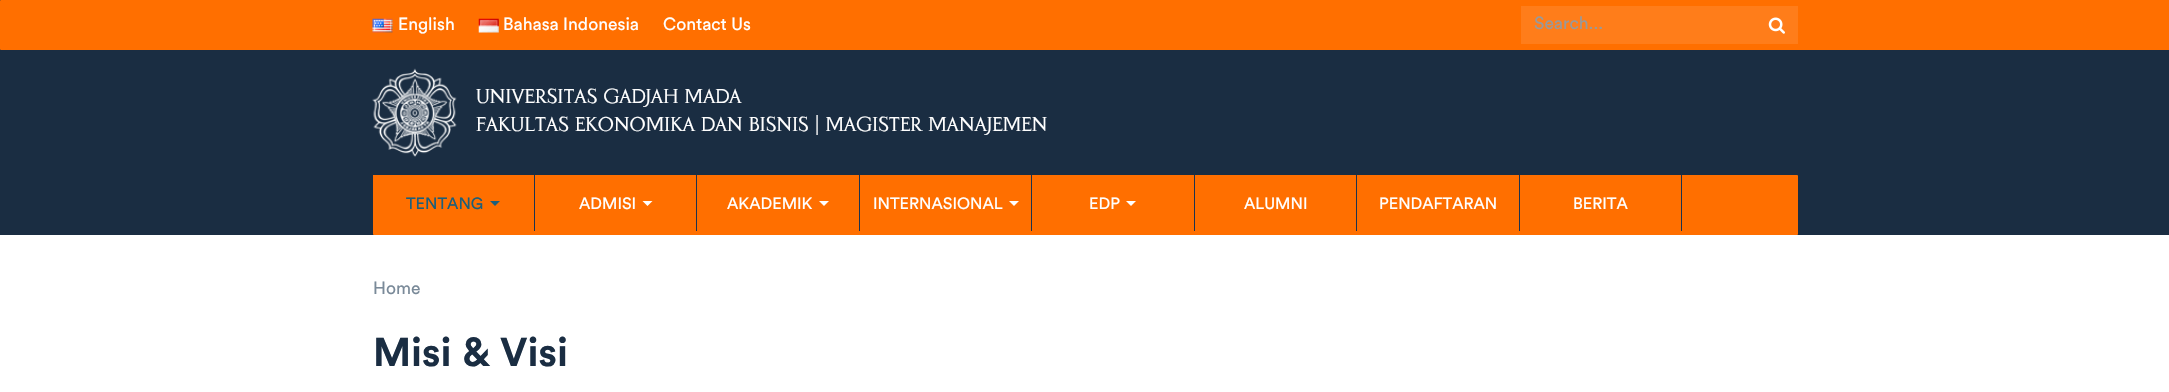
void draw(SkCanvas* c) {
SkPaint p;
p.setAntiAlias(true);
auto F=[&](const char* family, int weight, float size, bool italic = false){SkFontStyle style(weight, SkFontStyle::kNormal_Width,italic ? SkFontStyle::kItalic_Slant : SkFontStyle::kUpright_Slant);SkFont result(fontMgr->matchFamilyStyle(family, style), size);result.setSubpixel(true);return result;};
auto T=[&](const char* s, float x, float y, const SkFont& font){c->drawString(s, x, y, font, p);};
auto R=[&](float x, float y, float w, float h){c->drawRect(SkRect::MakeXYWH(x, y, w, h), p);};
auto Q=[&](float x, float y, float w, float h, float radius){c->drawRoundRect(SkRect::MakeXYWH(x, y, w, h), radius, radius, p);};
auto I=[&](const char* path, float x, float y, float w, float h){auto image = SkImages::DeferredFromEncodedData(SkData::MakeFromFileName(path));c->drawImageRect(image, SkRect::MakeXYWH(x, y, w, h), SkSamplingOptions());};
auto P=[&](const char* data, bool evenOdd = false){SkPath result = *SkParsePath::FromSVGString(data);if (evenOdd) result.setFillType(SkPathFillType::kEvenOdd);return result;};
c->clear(0xffffffff);
p.setColor(0xff1a2d42);
R(0,0,2169,235);
p.setColor(0xffff6f00);
Q(0,0,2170,50,1);
I("1.png",372,18,21,15);
auto f1 = F("Circular",400,17.5);
p.setColor(0xffffffff);
T("English",398,30,f1);
I("2.png",478,18,21,15);
T("Bahasa Indonesia",503,30,f1);
T("Contact Us",663,30,f1);
p.setColor(0xffff7d1a);
R(1521,6,277,38);
p.setColor(0xff999999);
T("Search...",1534,29,f1);
I("3.png",1768,17,17,17);
I("4.png",372,68,85,89);
auto f2 = F("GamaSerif",400,20);
p.setColor(0xffffffff);
T("UNIVERSITAS GADJAH MADA",476,103,f2);
T("FAKULTAS EKONOMIKA DAN BISNIS | MAGISTER MANAJEMEN",476,131,f2);
p.setColor(0xffff6f00);
Q(373,175,1425,60,1);
R(373,175,1,1);
p.setColor(0xff1c3351);
R(534,175,1,56);
auto f3 = F("Circular",400,16.25);
p.setColor(0xff1d5f7a);
T("TENTANG",406,209,f3);
c->drawPath(P("M490 201h10l-5 5z"),p);
p.setColor(0xff1c3351);
R(696,175,1,56);
p.setColor(0xffffffff);
T("ADMISI",579,209,f3);
c->drawPath(P("M642.5 201h10l-5 5z"),p);
p.setColor(0xff1c3351);
R(859,175,1,56);
p.setColor(0xffffffff);
T("AKADEMIK",727,209,f3);
c->drawPath(P("M819 201h10l-5 5z"),p);
p.setColor(0xff1c3351);
R(1031,175,1,56);
p.setColor(0xffffffff);
T("INTERNASIONAL",873,209,f3);
c->drawPath(P("M1009 201h10l-5 5z"),p);
p.setColor(0xff1c3351);
R(1194,175,1,56);
p.setColor(0xffffffff);
T("EDP",1089,209,f3);
c->drawPath(P("M1126 201h10l-5 5z"),p);
p.setColor(0xff1c3351);
R(1356,175,1,56);
p.setColor(0xffffffff);
T("ALUMNI",1244,209,f3);
p.setColor(0xff1c3351);
R(1519,175,1,56);
p.setColor(0xffffffff);
T("PENDAFTARAN",1379,209,f3);
p.setColor(0xff1c3351);
R(1681,175,1,56);
p.setColor(0xffffffff);
T("BERITA",1573,209,f3);
p.setColor(0xff7a8a99);
T("Home",373,294,f1);
auto f4 = F("Circular",700,40);
p.setColor(0xff1a2d42);
T("Misi & Visi",373,366,f4);
}
